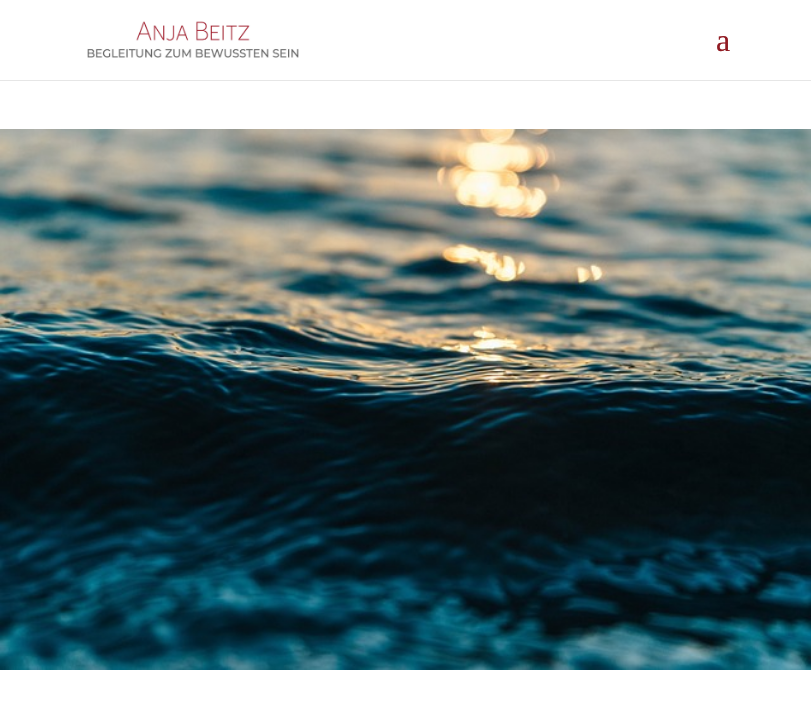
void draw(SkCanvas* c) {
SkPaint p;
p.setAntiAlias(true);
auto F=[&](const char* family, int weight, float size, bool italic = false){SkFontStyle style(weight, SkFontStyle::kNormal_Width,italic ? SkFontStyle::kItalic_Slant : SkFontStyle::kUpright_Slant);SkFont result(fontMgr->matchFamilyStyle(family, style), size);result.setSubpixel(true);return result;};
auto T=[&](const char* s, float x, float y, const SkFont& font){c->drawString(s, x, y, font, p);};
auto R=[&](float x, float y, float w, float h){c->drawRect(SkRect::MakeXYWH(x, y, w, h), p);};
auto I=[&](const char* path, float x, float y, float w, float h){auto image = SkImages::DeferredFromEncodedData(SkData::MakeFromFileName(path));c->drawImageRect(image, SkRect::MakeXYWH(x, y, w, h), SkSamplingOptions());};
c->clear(0xffffffff);
p.setColor(0xffe6e6e6);
R(0,80,811,1);
I("1.png",87,21,212,37);
auto f1 = F("Liberation Serif",400,32);
p.setColor(0xff911b23);
T("a",716,51,f1);
I("2.png",0,129,811,541);
}
